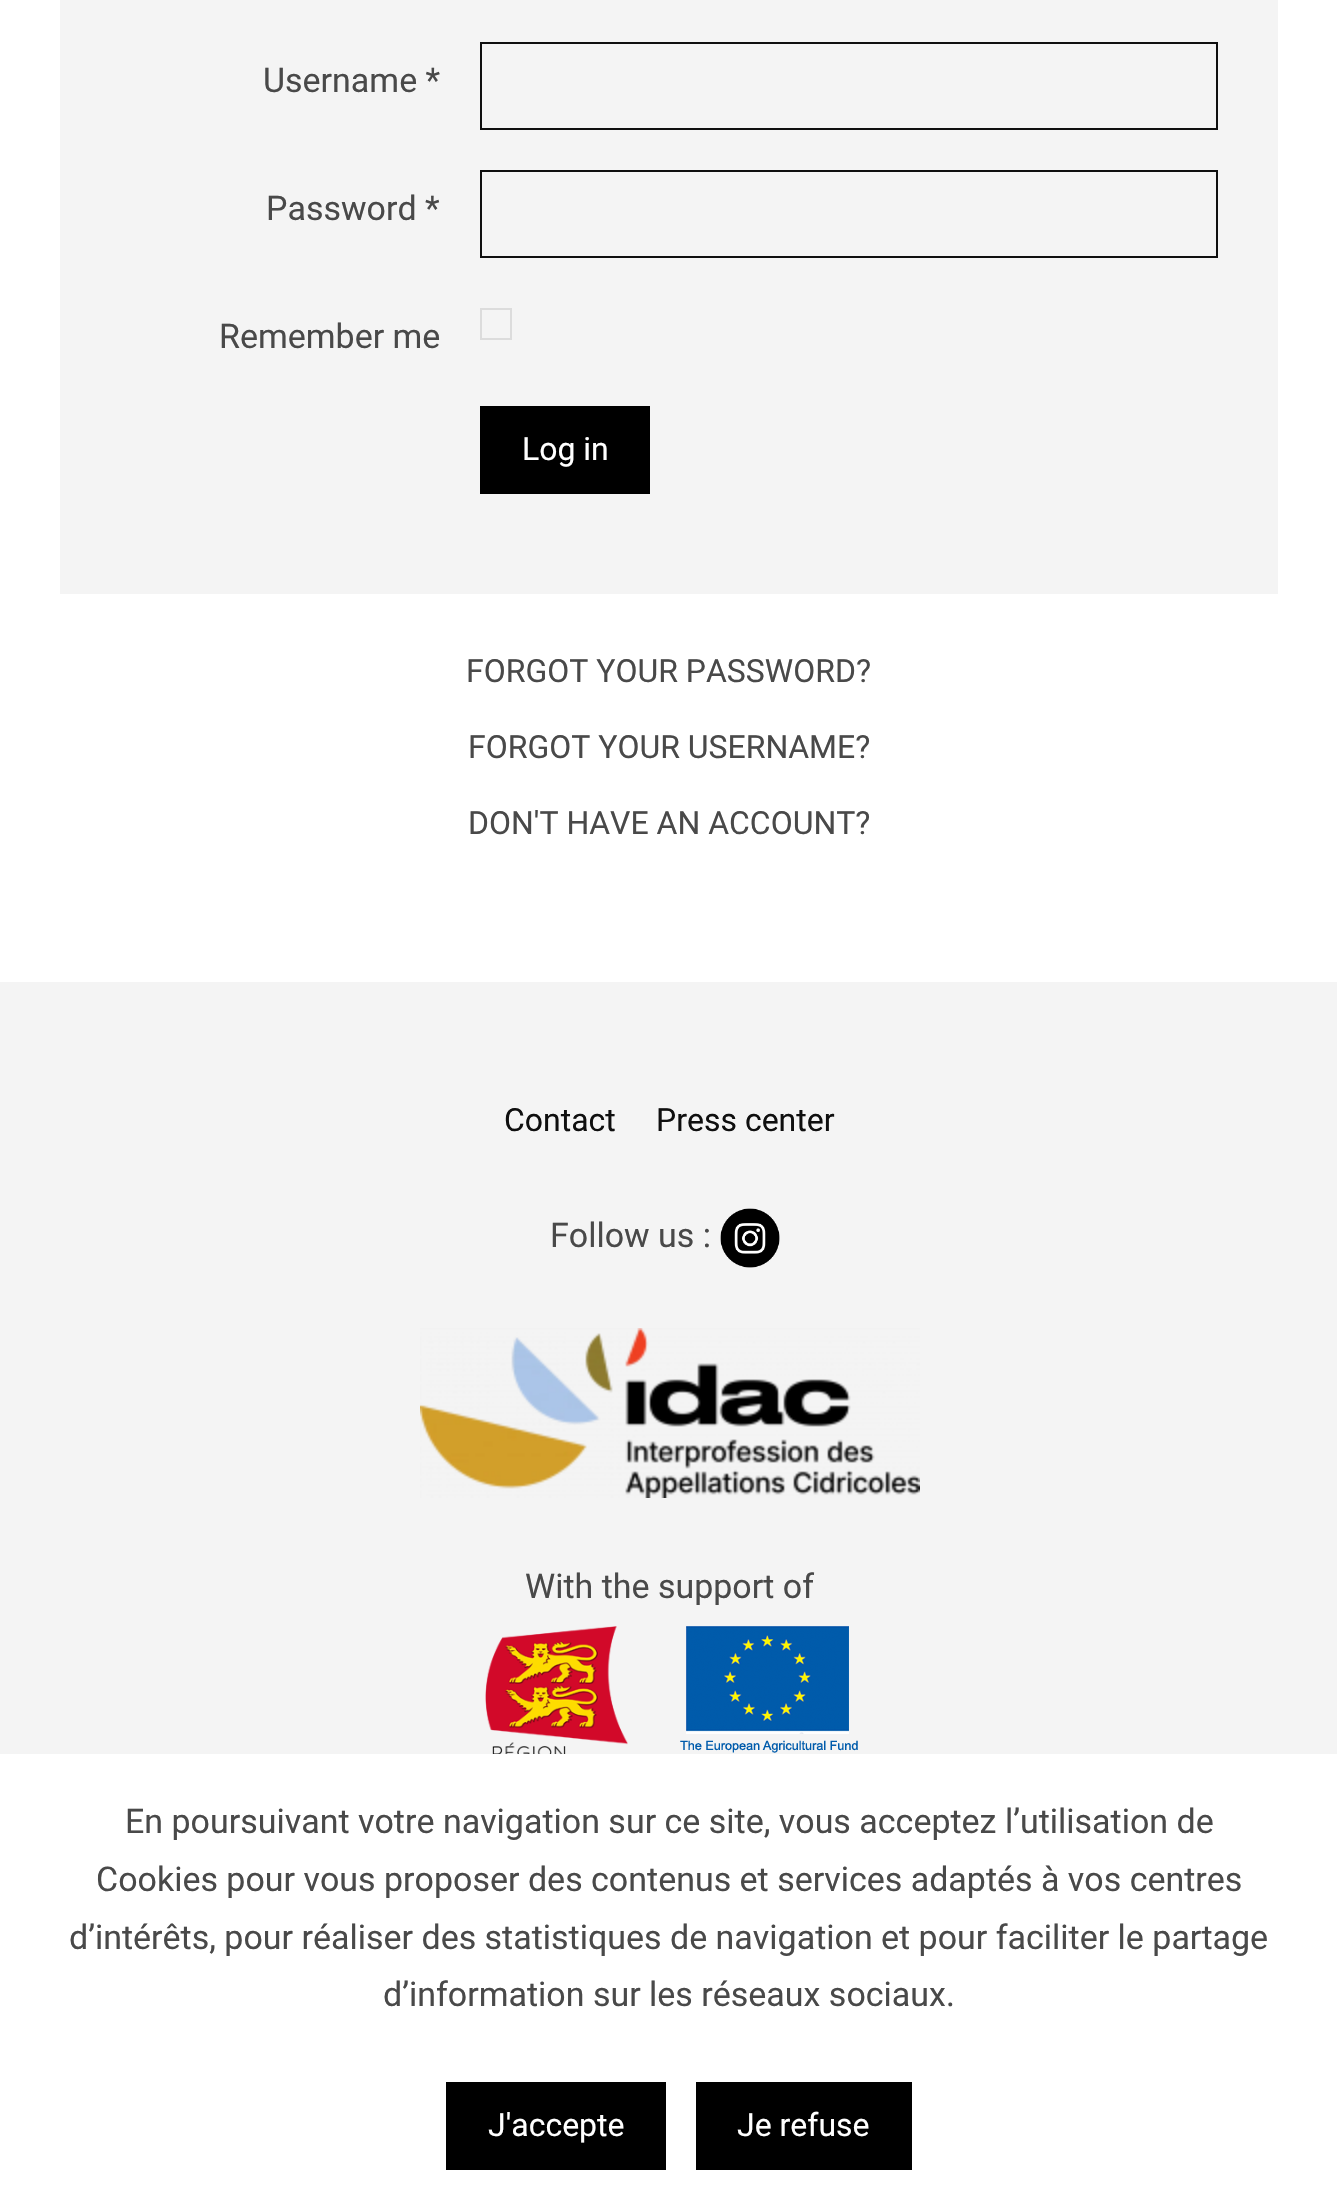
void draw(SkCanvas* c) {
SkPaint p;
p.setAntiAlias(true);
auto F=[&](const char* family, int weight, float size, bool italic = false){SkFontStyle style(weight, SkFontStyle::kNormal_Width,italic ? SkFontStyle::kItalic_Slant : SkFontStyle::kUpright_Slant);SkFont result(fontMgr->matchFamilyStyle(family, style), size);result.setSubpixel(true);return result;};
auto T=[&](const char* s, float x, float y, const SkFont& font){c->drawString(s, x, y, font, p);};
auto R=[&](float x, float y, float w, float h){c->drawRect(SkRect::MakeXYWH(x, y, w, h), p);};
auto I=[&](const char* path, float x, float y, float w, float h){auto image = SkImages::DeferredFromEncodedData(SkData::MakeFromFileName(path));c->drawImageRect(image, SkRect::MakeXYWH(x, y, w, h), SkSamplingOptions());};
c->clear(0xffffffff);
p.setColor(0xfff4f4f4);
R(60,0,1218,594);
auto f1 = F("Roboto",400,34);
p.setColor(0xff494949);
T("Username *",263,92,f1);
p.setStroke(true);
p.setStrokeWidth(2);
p.setColor(0xff0f0f0f);
c->drawRect(SkRect::MakeXYWH(481,43,736,86),p);
p.setStroke(false);
p.setColor(0xff494949);
T("Password *",266,220,f1);
p.setStroke(true);
p.setColor(0xff0f0f0f);
c->drawRect(SkRect::MakeXYWH(481,171,736,86),p);
p.setStroke(false);
p.setColor(0xff494949);
T("Remember me",219,348,f1);
p.setStroke(true);
p.setColor(0xffdcdcdc);
c->drawRect(SkRect::MakeXYWH(481,309,30,30),p);
p.setStroke(false);
p.setColor(0xff000000);
R(480,406,170,88);
auto f2 = F("Roboto",400,32);
p.setColor(0xffffffff);
T("Log in",522,460,f2);
p.setColor(0xff494949);
T("FORGOT YOUR PASSWORD?",466,682,f2);
T("FORGOT YOUR USERNAME?",468,758,f2);
T("DON'T HAVE AN ACCOUNT?",468,834,f2);
p.setColor(0xfff4f4f4);
R(0,982,1337,772);
p.setColor(0xff0f0f0f);
T("Contact",504,1131,f2);
T("Press center",656,1131,f2);
p.setColor(0xff494949);
T("Follow us :",550,1247,f1);
I("1.png",720,1208,60,60);
I("2.png",420,1328,500,170);
T("With the support of",525,1598,f1);
I("3.png",485,1626,143,128);
I("4.png",680,1626,178,127);
T("En poursuivant votre navigation sur ce site, vous acceptez l’utilisation de",125,1833,f1);
T("Cookies pour vous proposer des contenus et services adaptés à vos centres",96,1891,f1);
T("d’intérêts, pour réaliser des statistiques de navigation et pour faciliter le partage",69,1949,f1);
T("d’information sur les réseaux sociaux.",383,2006,f1);
p.setColor(0xff000000);
R(446,2082,220,88);
p.setColor(0xffffffff);
T("J'accepte",488,2136,f2);
p.setColor(0xff000000);
R(696,2082,216,88);
p.setColor(0xffffffff);
T("Je refuse",737,2136,f2);
}
